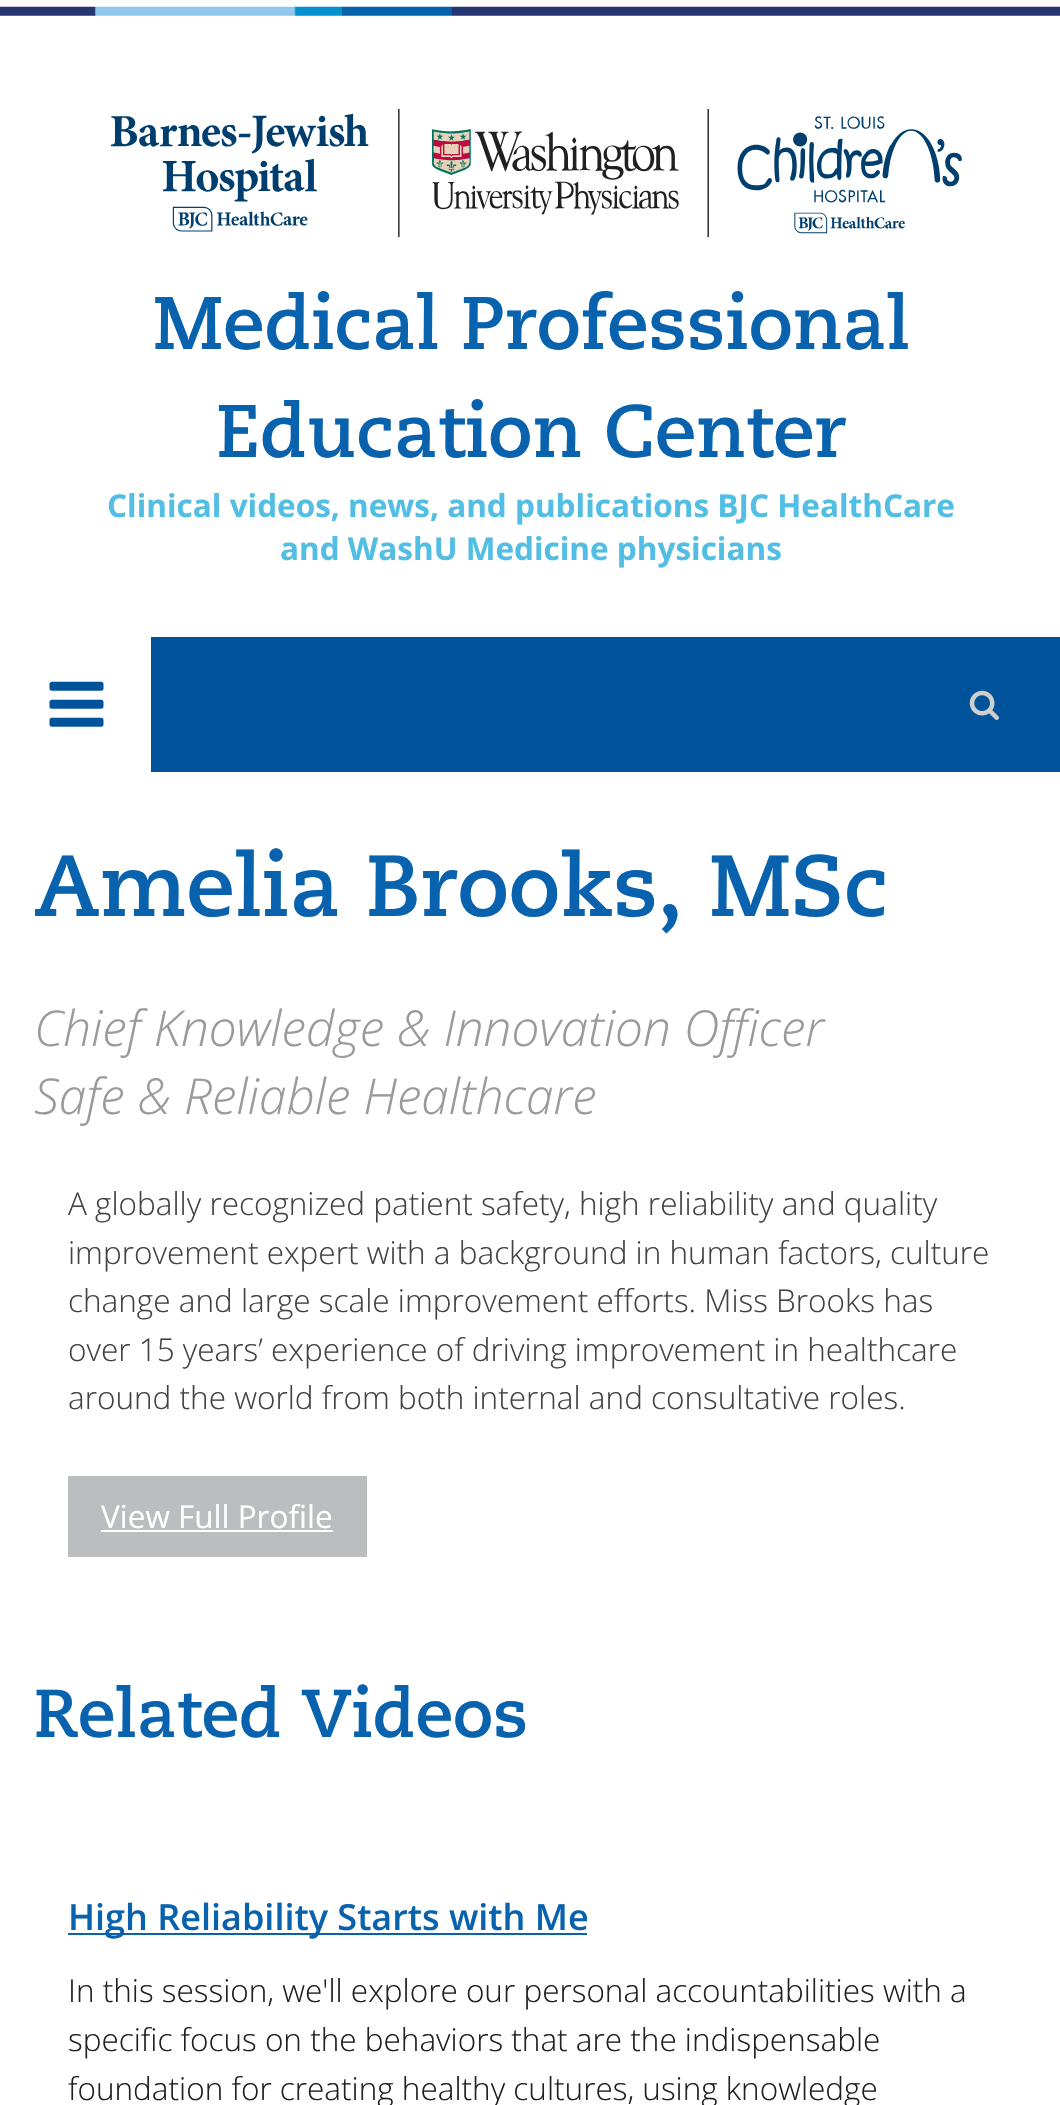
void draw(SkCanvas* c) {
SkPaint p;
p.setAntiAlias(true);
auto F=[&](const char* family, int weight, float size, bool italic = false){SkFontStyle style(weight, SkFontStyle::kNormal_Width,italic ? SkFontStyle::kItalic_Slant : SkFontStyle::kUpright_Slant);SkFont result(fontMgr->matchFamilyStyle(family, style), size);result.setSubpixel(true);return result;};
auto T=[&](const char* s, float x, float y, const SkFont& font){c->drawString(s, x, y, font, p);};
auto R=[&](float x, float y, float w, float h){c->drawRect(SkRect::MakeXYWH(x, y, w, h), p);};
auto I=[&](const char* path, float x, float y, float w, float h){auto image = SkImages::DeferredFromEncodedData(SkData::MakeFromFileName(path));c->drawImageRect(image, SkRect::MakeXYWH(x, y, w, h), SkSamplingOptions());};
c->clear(0xffffffff);
I("1.png",0,6,1060,10);
I("2.png",111,109,851,129);
auto f1 = F("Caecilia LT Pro",700,74.25);
p.setColor(0xff0962ae);
T("Medical Professional",153,349,f1);
T("Education Center",216,457,f1);
auto f2 = F("Open Sans",700,31.5);
p.setColor(0xff52bee4);
T("Clinical videos, news, and publications BJC HealthCare",107,517,f2);
T("and WashU Medicine physicians",280,560,f2);
p.setColor(0xff00539a);
R(151,637,909,135);
I("3.png",49,681,55,46);
I("4.png",969,690,30,30);
auto f3 = F("Caecilia LT Pro",700,86.6);
p.setColor(0xff0962ae);
T("Amelia Brooks, MSc",34,916,f3);
auto f4 = F("Open Sans",300,49.5,true);
p.setColor(0xff9a9a9a);
T("Chief Knowledge & Innovation Officer",34,1046,f4);
T("Safe & Reliable Healthcare",34,1114,f4);
auto f5 = F("Open Sans",300,31.5);
p.setColor(0xff424242);
T("A globally recognized patient safety, high reliability and quality",68,1215,f5);
T("improvement expert with a background in human factors, culture",68,1264,f5);
T("change and large scale improvement efforts. Miss Brooks has",68,1312,f5);
T("over 15 years’ experience of driving improvement in healthcare",68,1361,f5);
T("around the world from both internal and consultative roles.",68,1409,f5);
p.setColor(0xffbbbdbf);
R(68,1476,299,81);
auto f6 = F("Open Sans",400,31.5);
p.setColor(0xffffffff);
T("View Full Profile",101,1528,f6);
R(101,1530,232,2);
auto f7 = F("Caecilia LT Pro",700,67.5);
p.setColor(0xff0962ae);
T("Related Videos",34,1737,f7);
R(68,1933,519,2);
auto f8 = F("Open Sans",600,36);
T("High Reliability Starts with Me",68,1930,f8);
p.setColor(0xff231f20);
T("In this session, we'll explore our personal accountabilities with a",68,2002,f5);
T("specific focus on the behaviors that are the indispensable",68,2051,f5);
T("foundation for creating healthy cultures, using knowledge",68,2100,f5);
}
